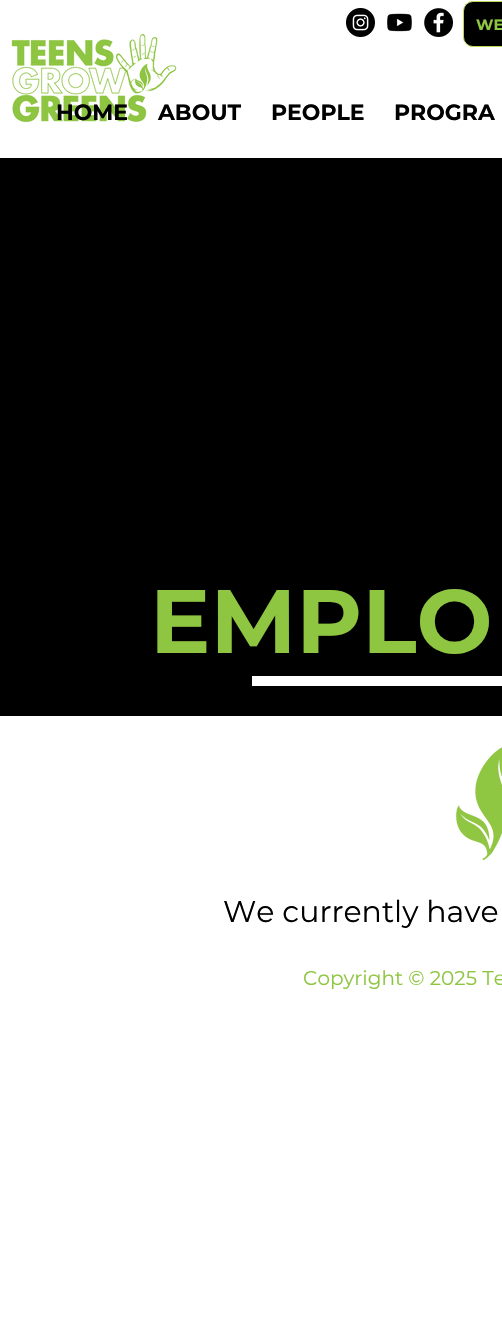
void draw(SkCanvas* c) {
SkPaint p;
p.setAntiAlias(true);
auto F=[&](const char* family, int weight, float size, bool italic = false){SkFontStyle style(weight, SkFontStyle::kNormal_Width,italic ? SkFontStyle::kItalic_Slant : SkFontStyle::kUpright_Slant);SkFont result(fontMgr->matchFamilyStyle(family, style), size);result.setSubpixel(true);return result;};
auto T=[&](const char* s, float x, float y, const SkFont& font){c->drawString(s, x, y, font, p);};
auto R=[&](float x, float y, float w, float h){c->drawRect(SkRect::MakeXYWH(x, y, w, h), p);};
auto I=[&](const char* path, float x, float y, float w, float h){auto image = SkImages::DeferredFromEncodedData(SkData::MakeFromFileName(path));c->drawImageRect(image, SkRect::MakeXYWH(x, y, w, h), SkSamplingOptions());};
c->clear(0xffffffff);
I("1.png",346,8,29,29);
I("2.png",387,13,25,19);
I("3.png",424,8,29,29);
p.setColor(0xff000000);
c->drawRoundRect(SkRect::MakeXYWH(463.5,1.5,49,45),9.5,9.5,p);
p.setStroke(true);
p.setStrokeWidth(1);
p.setColor(0xffbada55);
c->drawRoundRect(SkRect::MakeXYWH(463.5,1.5,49,45),9.5,9.5,p);
auto f1 = F("Montserrat",700,15);
p.setStroke(false);
p.setColor(0xff8fc641);
T("WE",476,30,f1);
I("4.png",11,34,166,89);
auto f2 = F("Montserrat",700,22);
p.setColor(0xff000000);
T("HOME",56,120,f2);
T("ABOUT",158,120,f2);
T("PEOPLE",271,120,f2);
T("PROGRA",394,120,f2);
R(0,158,502,558);
auto f3 = F("Montserrat",700,90);
p.setColor(0xff8fc641);
T("EMPLO",150,653,f3);
p.setColor(0xffffffff);
R(252,676,250,10);
I("5.png",456,747,46,114);
auto f4 = F("Montserrat",400,30);
p.setColor(0xff000000);
T("We currently have",223,922,f4);
auto f5 = F("Montserrat",400,20);
p.setColor(0xff8fc641);
T("Copyright © 2025 Te",303,985,f5);
}
